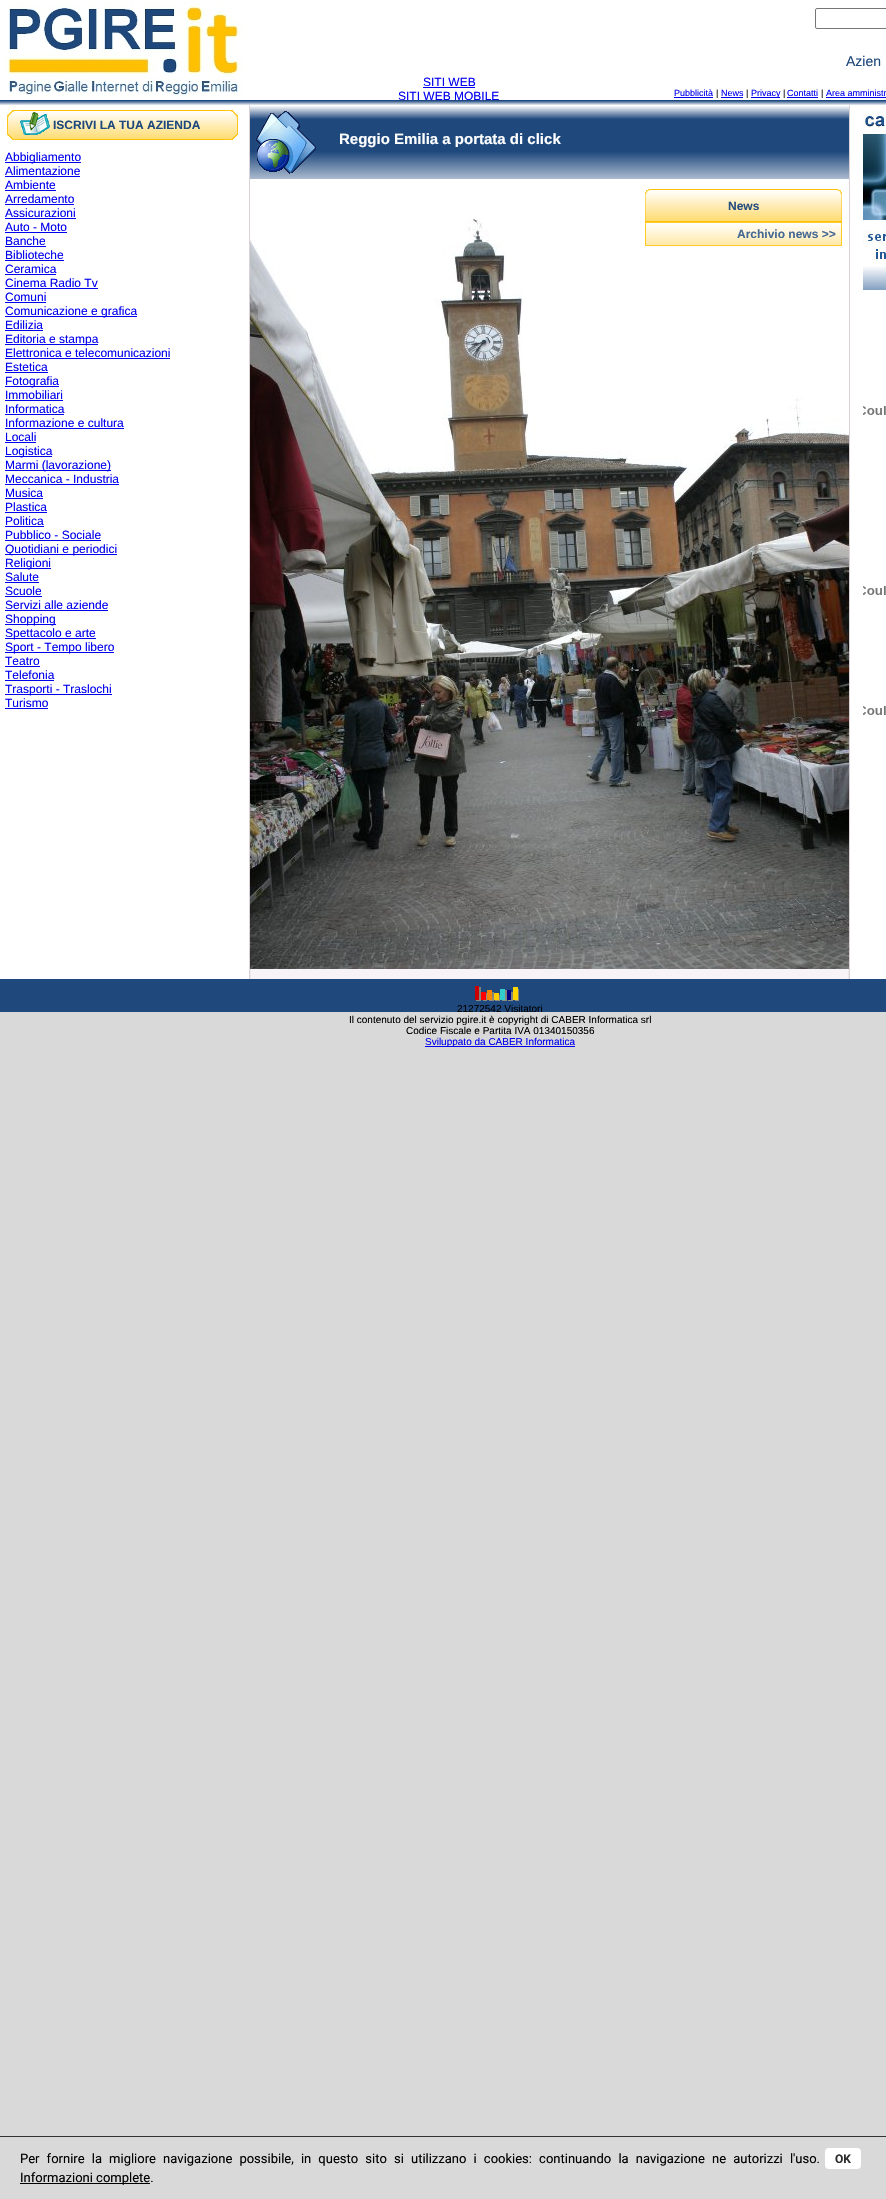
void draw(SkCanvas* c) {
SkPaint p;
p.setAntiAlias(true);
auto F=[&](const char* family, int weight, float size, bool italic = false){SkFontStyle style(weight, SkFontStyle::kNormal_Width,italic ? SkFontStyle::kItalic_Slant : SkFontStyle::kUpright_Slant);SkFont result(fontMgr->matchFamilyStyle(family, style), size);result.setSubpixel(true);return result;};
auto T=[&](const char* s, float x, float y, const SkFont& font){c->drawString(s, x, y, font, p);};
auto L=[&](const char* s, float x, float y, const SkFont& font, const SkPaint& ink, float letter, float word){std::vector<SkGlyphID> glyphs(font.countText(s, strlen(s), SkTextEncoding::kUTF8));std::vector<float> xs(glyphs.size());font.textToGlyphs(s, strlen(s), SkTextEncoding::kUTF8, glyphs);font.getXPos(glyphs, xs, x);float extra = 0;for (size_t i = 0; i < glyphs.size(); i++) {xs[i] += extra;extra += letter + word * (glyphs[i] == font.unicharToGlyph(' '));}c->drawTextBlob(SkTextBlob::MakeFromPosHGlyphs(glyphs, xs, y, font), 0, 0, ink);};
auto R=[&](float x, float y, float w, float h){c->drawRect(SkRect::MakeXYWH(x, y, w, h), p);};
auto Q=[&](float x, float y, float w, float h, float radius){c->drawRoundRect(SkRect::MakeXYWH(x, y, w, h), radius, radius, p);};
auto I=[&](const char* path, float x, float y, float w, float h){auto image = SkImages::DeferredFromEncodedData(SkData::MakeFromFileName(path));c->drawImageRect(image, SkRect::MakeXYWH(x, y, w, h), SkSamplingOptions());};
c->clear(0xffd9d9d9);
p.setColor(0xffffffff);
R(0,0,886,979);
I("1.png",4,2,240,95);
p.setStroke(true);
p.setStrokeWidth(1);
p.setColor(0xff767676);
c->drawRoundRect(SkRect::MakeXYWH(815.5,8.5,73,20),1.5,1.5,p);
auto f1 = F("Liberation Sans",400,14);
p.setStroke(false);
p.setColor(0xff1f497d);
T("Azien",846,66,f1);
auto f2 = F("Liberation Sans",400,12);
p.setColor(0xff0000ee);
T("SITI WEB",423,86,f2);
R(423,87,52,1);
T("SITI WEB MOBILE",398,100,f2);
auto f3 = F("Liberation Sans",400,9);
T("Pubblicità",674,96,f3);
R(674,97,39,1);
p.setColor(0xff000000);
T("|",716,96,f3);
p.setColor(0xff0000ee);
T("News",721,96,f3);
R(721,97,22,1);
p.setColor(0xff000000);
T("|",746,96,f3);
p.setColor(0xff0000ee);
R(751,97,29,1);
T("Privacy",751,96,f3);
p.setColor(0xff000000);
T("|",783,96,f3);
p.setColor(0xff0000ee);
T("Contatti",787,96,f3);
R(787,97,31,1);
p.setColor(0xff000000);
T("|",821,96,f3);
p.setColor(0xff0000ee);
T("Area amministr",826,96,f3);
R(826,97,60,1);
I("2.png",0,100,886,5);
I("3.png",249,105,601,874);
I("4.png",7,110,13,30);
I("5.png",20,110,205,30);
I("6.png",20,112,30,23);
auto f4 = F("Liberation Sans",700,12);
p.setColor(0xff1f497d);
T("ISCRIVI LA TUA AZIENDA",53,129,f4);
I("7.png",225,110,13,30);
p.setColor(0xff0000ee);
R(5,162,76,1);
T("Abbigliamento",5,161,f2);
T("Alimentazione",5,175,f2);
R(5,176,75,1);
T("Ambiente",5,189,f2);
R(5,190,51,1);
T("Arredamento",5,203,f2);
R(5,204,69,1);
T("Assicurazioni",5,217,f2);
R(5,218,71,1);
T("Auto - Moto",5,231,f2);
R(5,232,62,1);
T("Banche",5,245,f2);
R(5,246,41,1);
T("Biblioteche",5,259,f2);
R(5,260,59,1);
T("Ceramica",5,273,f2);
R(5,274,51,1);
T("Cinema Radio Tv",5,287,f2);
R(5,288,93,1);
T("Comuni",5,301,f2);
R(5,302,41,1);
R(5,316,132,1);
T("Comunicazione e grafica",5,315,f2);
T("Edilizia",5,329,f2);
R(5,330,38,1);
R(5,344,93,1);
T("Editoria e stampa",5,343,f2);
T("Elettronica e telecomunicazioni",5,357,f2);
R(5,358,165,1);
T("Estetica",5,371,f2);
R(5,372,43,1);
R(5,386,54,1);
T("Fotografia",5,385,f2);
T("Immobiliari",5,399,f2);
R(5,400,58,1);
T("Informatica",5,413,f2);
R(5,414,59,1);
T("Informazione e cultura",5,427,f2);
R(5,428,119,1);
T("Locali",5,441,f2);
R(5,442,31,1);
R(5,456,47,1);
T("Logistica",5,455,f2);
R(5,470,106,1);
T("Marmi (lavorazione)",5,469,f2);
T("Meccanica - Industria",5,483,f2);
R(5,484,114,1);
T("Musica",5,497,f2);
R(5,498,38,1);
T("Plastica",5,511,f2);
R(5,512,42,1);
T("Politica",5,525,f2);
R(5,526,39,1);
T("Pubblico - Sociale",5,539,f2);
R(5,540,96,1);
R(5,554,112,1);
T("Quotidiani e periodici",5,553,f2);
R(5,568,46,1);
T("Religioni",5,567,f2);
T("Salute",5,581,f2);
R(5,582,34,1);
T("Scuole",5,595,f2);
R(5,596,37,1);
T("Servizi alle aziende",5,609,f2);
R(5,610,103,1);
R(5,624,51,1);
T("Shopping",5,623,f2);
R(5,638,91,1);
T("Spettacolo e arte",5,637,f2);
R(5,652,109,1);
T("Sport - Tempo libero",5,651,f2);
T("Teatro",5,665,f2);
R(5,666,35,1);
T("Telefonia",5,679,f2);
R(5,680,49,1);
R(5,694,107,1);
T("Trasporti - Traslochi",5,693,f2);
T("Turismo",5,707,f2);
R(5,708,43,1);
I("8.png",250,105,599,74);
I("9.png",256,111,60,63);
auto f5 = F("Liberation Sans",700,15);
p.setColor(0xffffffff);
T("Reggio Emilia a portata di click",339,144,f5);
I("10.png",250,179,599,790);
I("11.png",645,189,5,33);
I("12.png",650,189,187,33);
p.setColor(0xff264e7f);
T("News",728,210,f4);
I("13.png",837,189,5,33);
p.setColor(0xffffc926);
R(841,222,1,24);
R(645,245,197,1);
R(645,222,1,24);
I("14.png",646,222,195,23);
p.setColor(0xff466994);
T("Archivio news >>",737,238,f4);
I("15.png",863,110,23,180);
I("16.png",863,406,23,9);
I("16.png",863,586,23,9);
I("16.png",863,706,23,9);
p.setColor(0xff1f497d);
R(0,979,886,33);
I("17.png",475,986,44,15);
auto f6 = F("Liberation Sans",400,10);
p.setColor(0xff000000);
T("21272542 Visitatori",457,1012,f6);
T("Il contenuto del servizio pgire.it è copyright di CABER Informatica srl",349,1023,f6);
T("Codice Fiscale e Partita IVA 01340150356",406,1034,f6);
p.setColor(0xff0000ee);
R(425,1046,150,1);
T("Sviluppato da CABER Informatica",425,1045,f6);
p.setColor(0xff333333);
R(0,2136,886,1);
auto f7 = F("Roboto",400,13);
p.setColor(0xff000000);
L("Per fornire la migliore navigazione possibile, in questo sito si utilizzano i cookies: continuando la navigazione ne autorizzi l'uso.",20,2163,f7,p,0,3.9);
p.setColor(0xffffffff);
Q(825,2148,36,21,4);
auto f8 = F("Roboto",700,12);
p.setColor(0xff2d2d2d);
T("OK",835,2163,f8);
p.setColor(0xff000000);
R(20,2183,130,1);
T("Informazioni complete.",20,2182,f7);
}
